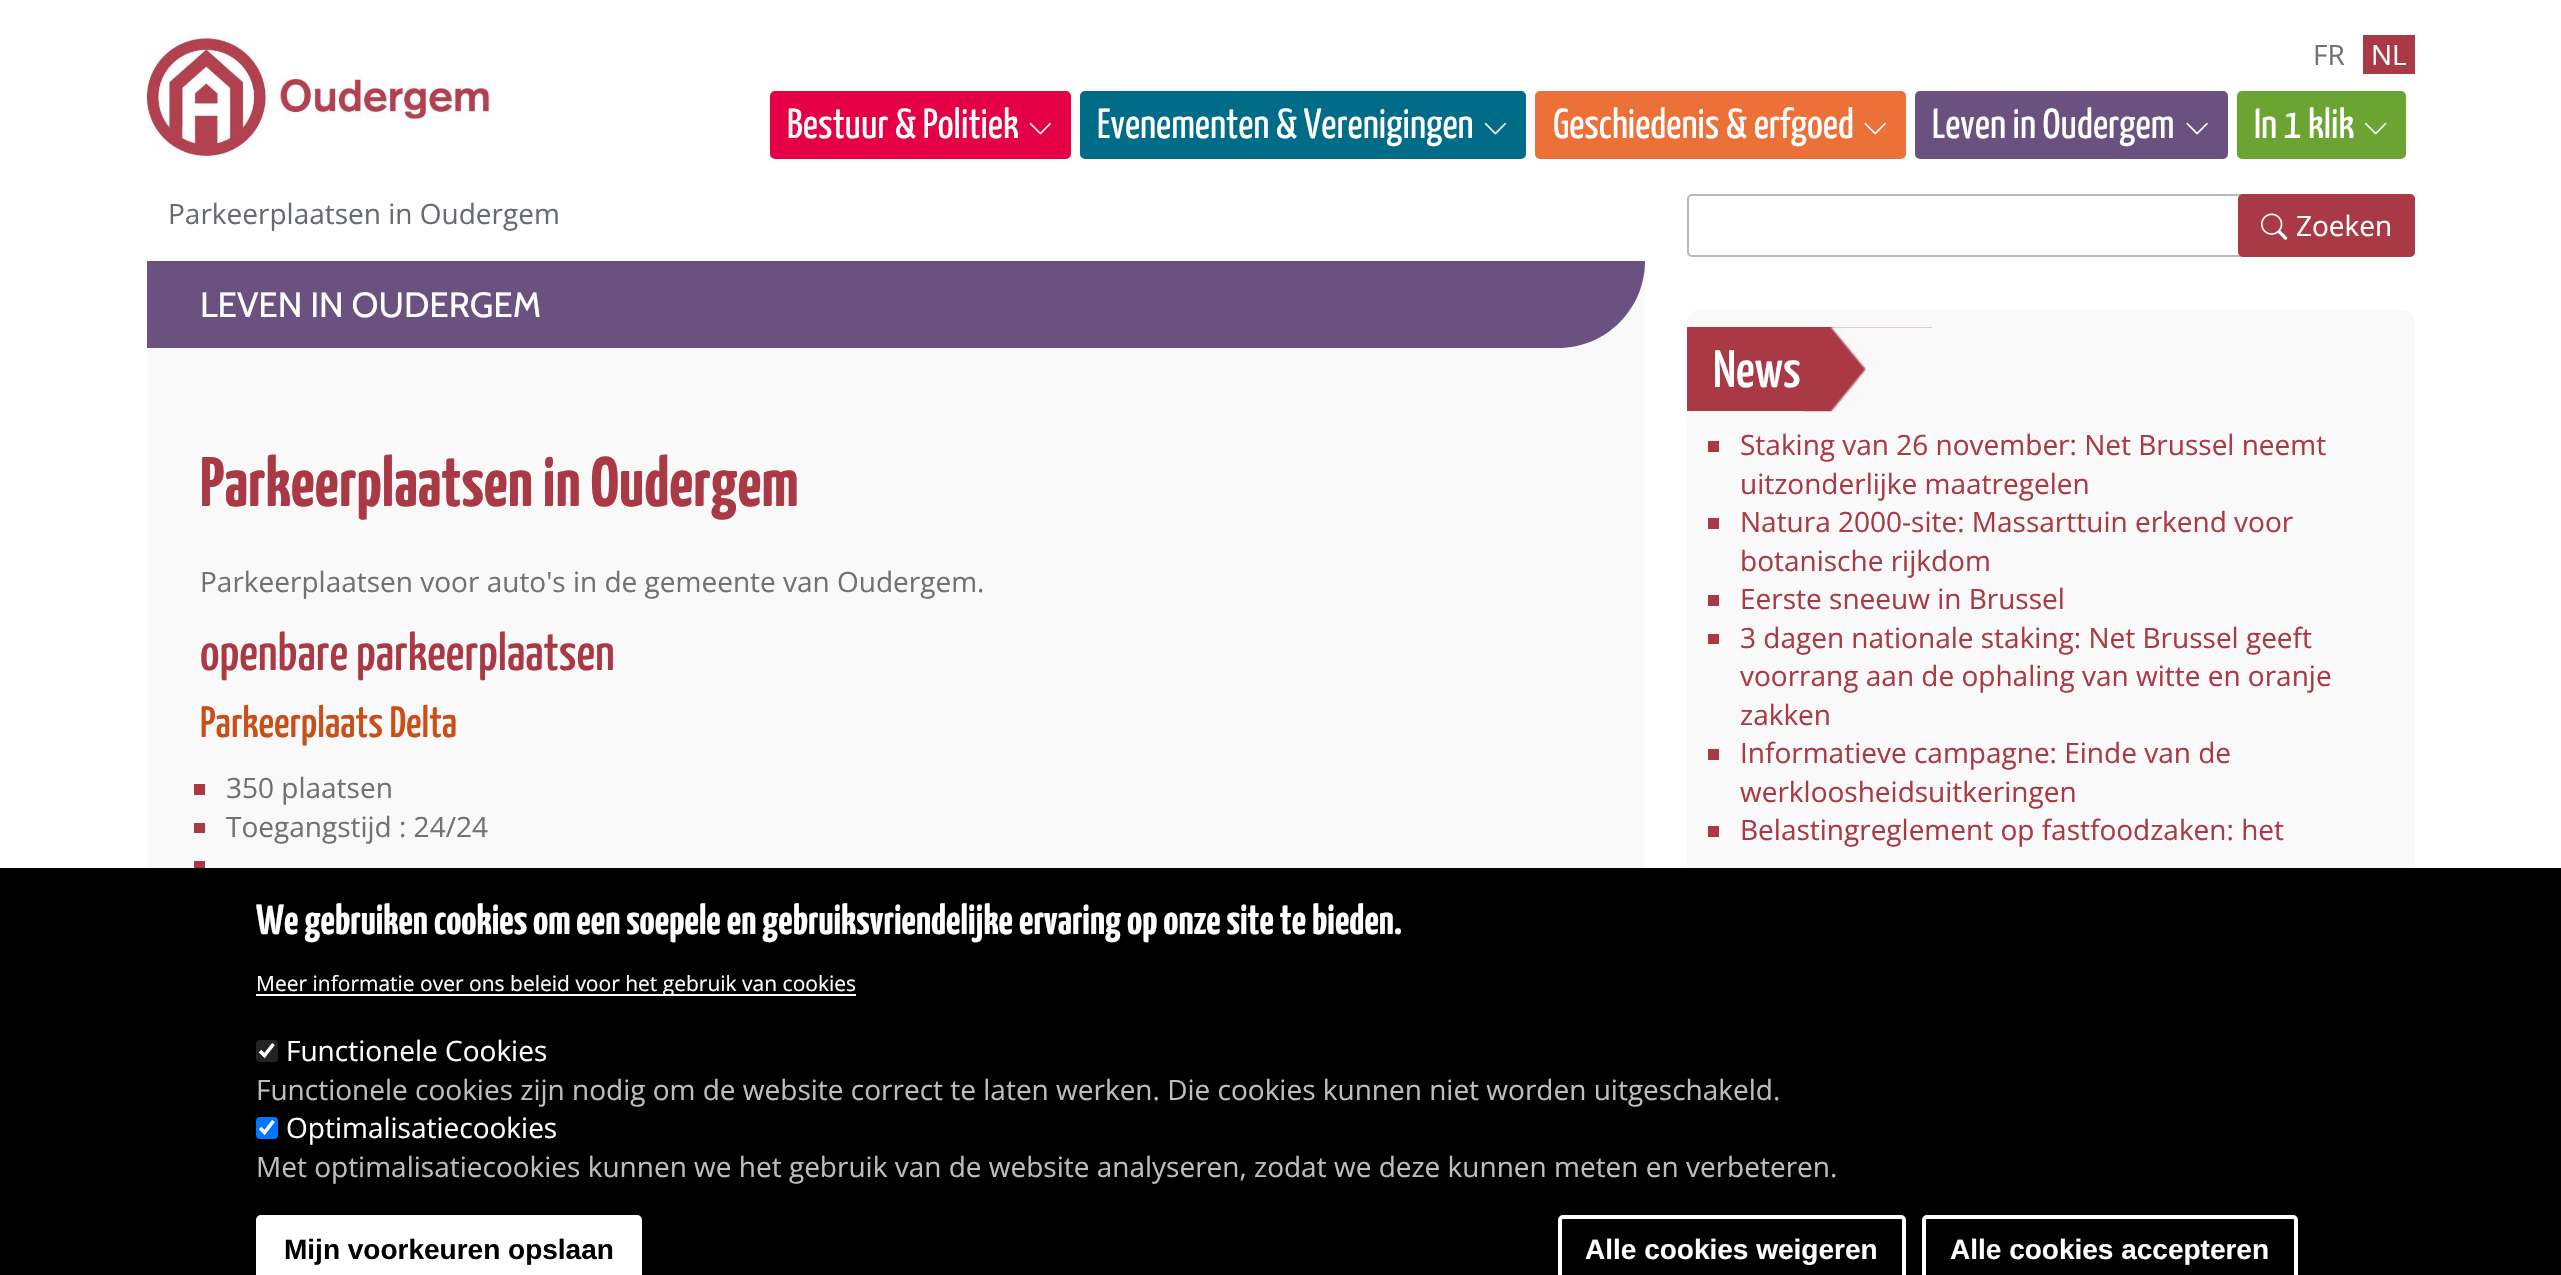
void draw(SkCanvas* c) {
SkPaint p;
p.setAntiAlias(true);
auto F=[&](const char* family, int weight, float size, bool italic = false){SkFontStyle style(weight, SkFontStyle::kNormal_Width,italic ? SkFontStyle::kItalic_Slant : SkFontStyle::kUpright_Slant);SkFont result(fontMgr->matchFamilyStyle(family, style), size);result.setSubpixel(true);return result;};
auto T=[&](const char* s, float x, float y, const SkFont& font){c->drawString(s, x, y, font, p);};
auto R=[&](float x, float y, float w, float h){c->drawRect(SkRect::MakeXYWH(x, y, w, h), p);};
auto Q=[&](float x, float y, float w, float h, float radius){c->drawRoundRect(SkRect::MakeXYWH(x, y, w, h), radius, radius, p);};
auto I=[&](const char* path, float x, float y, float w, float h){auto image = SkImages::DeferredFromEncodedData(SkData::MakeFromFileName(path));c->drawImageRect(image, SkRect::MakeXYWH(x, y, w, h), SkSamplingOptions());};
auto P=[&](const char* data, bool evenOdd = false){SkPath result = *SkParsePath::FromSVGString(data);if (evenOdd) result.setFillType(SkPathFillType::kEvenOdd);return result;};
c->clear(0xffffffff);
I("1.png",147,38,343,118);
auto f1 = F("Open Sans",400,28);
p.setColor(0xff717171);
T("FR",2313,65,f1);
p.setColor(0xffaa3946);
R(2363,35,52,39);
p.setColor(0xffffffff);
T("NL",2371,65,f1);
p.setColor(0xffe50046);
c->drawRoundRect(SkRect::MakeXYWH(772,93,297,64),3,3,p);
p.setStroke(true);
p.setStrokeWidth(4);
c->drawRoundRect(SkRect::MakeXYWH(772,93,297,64),3,3,p);
auto f2 = F("Yanone Kaffeesatz",400,42);
p.setStroke(false);
p.setColor(0xffffffff);
T("Bestuur & Politiek",787,138,f2);
I("2.png",1029,122,22,13);
p.setColor(0xff006c87);
c->drawRoundRect(SkRect::MakeXYWH(1082,93,442,64),3,3,p);
p.setStroke(true);
c->drawRoundRect(SkRect::MakeXYWH(1082,93,442,64),3,3,p);
p.setStroke(false);
p.setColor(0xffffffff);
T("Evenementen & Verenigingen",1097,138,f2);
I("3.png",1484,122,22,13);
p.setColor(0xffeb7138);
c->drawRoundRect(SkRect::MakeXYWH(1537,93,367,64),3,3,p);
p.setStroke(true);
c->drawRoundRect(SkRect::MakeXYWH(1537,93,367,64),3,3,p);
p.setStroke(false);
p.setColor(0xffffffff);
T("Geschiedenis & erfgoed",1553,138,f2);
I("4.png",1864,122,22,13);
p.setColor(0xff6b517f);
c->drawRoundRect(SkRect::MakeXYWH(1917,93,309,64),3,3,p);
p.setStroke(true);
c->drawRoundRect(SkRect::MakeXYWH(1917,93,309,64),3,3,p);
p.setStroke(false);
p.setColor(0xffffffff);
T("Leven in Oudergem",1932,138,f2);
I("5.png",2186,122,22,13);
p.setColor(0xff6ca433);
c->drawRoundRect(SkRect::MakeXYWH(2239,93,165,64),3,3,p);
p.setStroke(true);
c->drawRoundRect(SkRect::MakeXYWH(2239,93,165,64),3,3,p);
p.setStroke(false);
p.setColor(0xffffffff);
T("In 1 klik",2254,138,f2);
I("6.png",2365,122,22,13);
p.setColor(0xff676b70);
T("Parkeerplaatsen in Oudergem",168,224,f1);
p.setColor(0xfff9f9f9);
R(147,261,1498,607);
p.setColor(0xff6b517f);
c->drawPath(P("M147 261h1498c0 48-39 87-87 87h-1411z"),p);
auto f3 = F("Cabin",400,35);
p.setColor(0xffffffff);
T("LEVEN IN OUDERGEM",200,317,f3);
auto f4 = F("Yanone Kaffeesatz",700,70);
p.setColor(0xffaa3946);
T("Parkeerplaatsen in Oudergem",200,506,f4);
p.setColor(0xff717171);
T("Parkeerplaatsen voor auto's in de gemeente van Oudergem.",200,592,f1);
auto f5 = F("Yanone Kaffeesatz",500,52.5);
p.setColor(0xffaa3946);
T("openbare parkeerplaatsen",200,670,f5);
auto f6 = F("Yanone Kaffeesatz",500,43.75);
p.setColor(0xffc94f16);
T("Parkeerplaats Delta",200,737,f6);
p.setColor(0xffaa3946);
R(194,784,11,11);
p.setColor(0xff717171);
T("350 plaatsen",226,798,f1);
p.setColor(0xffaa3946);
R(194,823,11,10);
p.setColor(0xff717171);
T("Toegangstijd : 24/24",226,837,f1);
p.setColor(0xffaa3946);
R(194,861,11,7);
p.setStroke(true);
p.setStrokeWidth(2);
p.setColor(0xffb8b8b8);
c->drawRoundRect(SkRect::MakeXYWH(1688,195,726,61),4,4,p);
p.setStroke(false);
p.setColor(0xffaa3946);
c->drawRoundRect(SkRect::MakeXYWH(2239,195,175,61),4,4,p);
p.setStroke(true);
c->drawRoundRect(SkRect::MakeXYWH(2239,195,175,61),4,4,p);
I("7.png",2261,213,27,27);
p.setStroke(false);
p.setColor(0xffffffff);
T("Zoeken",2296,236,f1);
p.setColor(0xfff9f9f9);
Q(1687,310,728,793,12);
p.setColor(0xffaa3946);
R(1687,327,245,84);
I("8.png",1802,327,130,85);
p.setColor(0xffffffff);
T("News",1713,387,f5);
p.setColor(0xffaa3946);
R(1708,441,11,11);
T("Staking van 26 november: Net Brussel neemt",1740,455,f1);
T("uitzonderlijke maatregelen",1740,494,f1);
R(1708,518,11,11);
T("Natura 2000-site: Massarttuin erkend voor",1740,532,f1);
T("botanische rijkdom",1740,571,f1);
R(1708,595,11,11);
T("Eerste sneeuw in Brussel",1740,609,f1);
R(1708,634,11,10);
T("3 dagen nationale staking: Net Brussel geeft",1740,648,f1);
T("voorrang aan de ophaling van witte en oranje",1740,686,f1);
T("zakken",1740,725,f1);
R(1708,749,11,11);
T("Informatieve campagne: Einde van de",1740,763,f1);
T("werkloosheidsuitkeringen",1740,802,f1);
R(1708,826,11,11);
T("Belastingreglement op fastfoodzaken: het",1740,840,f1);
p.setColor(0xff000000);
R(0,868,2561,407);
auto f7 = F("Yanone Kaffeesatz",700,42);
p.setColor(0xffffffff);
T("We gebruiken cookies om een soepele en gebruiksvriendelijke ervaring op onze site te bieden.",256,934,f7);
R(256,994,600,2);
auto f8 = F("Open Sans",400,21);
T("Meer informatie over ons beleid voor het gebruik van cookies",256,991,f8);
p.setColor(0xff232323);
Q(256,1040,22,22,4);
p.setStroke(true);
p.setStrokeWidth(3.6);
p.setColor(0xffffffff);
c->drawPath(P("M260 1051l4.5 4.5l9-11.5"),p);
p.setStroke(false);
T("Functionele Cookies",286,1061,f1);
p.setColor(0xffbebebe);
T("Functionele cookies zijn nodig om de website correct te laten werken. Die cookies kunnen niet worden uitgeschakeld.",256,1100,f1);
p.setColor(0xff0075ff);
Q(256,1117,22,22,4);
p.setStroke(true);
p.setColor(0xffffffff);
c->drawPath(P("M260 1128l4.5 4.5l9-11.5"),p);
p.setStroke(false);
T("Optimalisatiecookies",286,1138,f1);
p.setColor(0xffbebebe);
T("Met optimalisatiecookies kunnen we het gebruik van de website analyseren, zodat we deze kunnen meten en verbeteren.",256,1177,f1);
p.setColor(0xffffffff);
c->drawRoundRect(SkRect::MakeXYWH(258,1217,382,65),3,3,p);
p.setStroke(true);
p.setStrokeWidth(4);
c->drawRoundRect(SkRect::MakeXYWH(258,1217,382,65),3,3,p);
auto f9 = F("Liberation Sans",700,28);
p.setStroke(false);
p.setColor(0xff000000);
T("Mijn voorkeuren opslaan",284,1259,f9);
p.setStroke(true);
p.setColor(0xffffffff);
c->drawRoundRect(SkRect::MakeXYWH(1560,1217,344,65),3,3,p);
p.setStroke(false);
T("Alle cookies weigeren",1585,1259,f9);
p.setStroke(true);
c->drawRoundRect(SkRect::MakeXYWH(1924,1217,372,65),3,3,p);
p.setStroke(false);
T("Alle cookies accepteren",1950,1259,f9);
}
